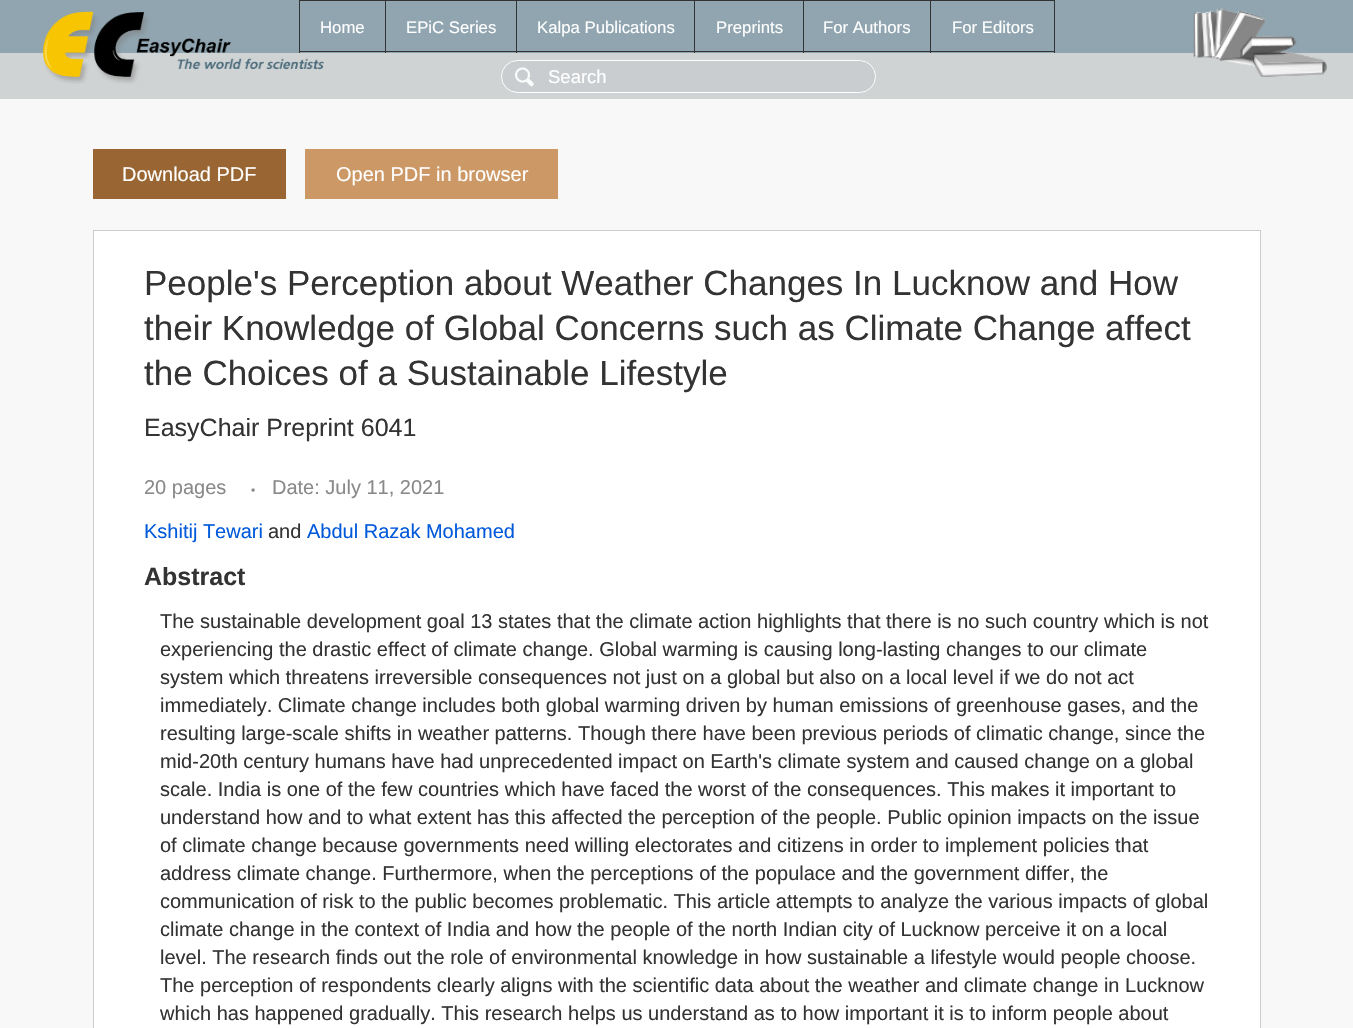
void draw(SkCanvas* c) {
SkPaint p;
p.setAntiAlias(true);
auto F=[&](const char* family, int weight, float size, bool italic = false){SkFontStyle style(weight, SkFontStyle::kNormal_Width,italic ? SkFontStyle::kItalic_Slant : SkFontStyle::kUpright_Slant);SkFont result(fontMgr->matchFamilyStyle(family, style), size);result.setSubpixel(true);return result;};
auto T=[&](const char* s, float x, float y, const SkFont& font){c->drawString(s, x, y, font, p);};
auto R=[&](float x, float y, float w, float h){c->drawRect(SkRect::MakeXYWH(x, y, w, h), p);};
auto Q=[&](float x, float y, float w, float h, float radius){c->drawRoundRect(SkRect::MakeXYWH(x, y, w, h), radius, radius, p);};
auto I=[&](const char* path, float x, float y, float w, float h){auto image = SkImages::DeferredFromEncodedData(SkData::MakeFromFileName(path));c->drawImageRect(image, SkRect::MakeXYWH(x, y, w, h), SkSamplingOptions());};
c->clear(0xff90a5b0);
p.setColor(0xffd0d3d4);
R(0,53,1353,46);
I("1.png",43,11,281,73);
p.setColor(0xff333333);
R(930,0,125,1);
R(1054,0,1,53);
R(930,51,125,1);
R(930,0,1,53);
R(803,0,128,1);
R(803,51,128,1);
R(803,0,1,53);
R(694,0,110,1);
R(694,51,110,1);
R(694,0,1,53);
R(516,0,179,1);
R(516,51,179,1);
R(516,0,1,53);
R(385,0,133,1);
R(385,51,133,1);
R(385,0,1,53);
R(299,0,87,1);
R(299,51,87,1);
R(299,0,1,53);
auto f1 = F("Liberation Sans",400,16.75);
p.setColor(0xffffffff);
T("Home",320,33,f1);
T("EPiC Series",406,33,f1);
T("Kalpa Publications",537,33,f1);
T("Preprints",716,33,f1);
T("For Authors",823,33,f1);
T("For Editors",952,33,f1);
I("2.png",1193,8,134,69);
p.setColor(0xffc9cdd0);
Q(501,60,375,33,16.5);
I("3.png",515,67,19,20);
p.setStroke(true);
p.setStrokeWidth(1);
p.setColor(0xffffffff);
c->drawRoundRect(SkRect::MakeXYWH(501.5,60.5,374,32),16,16,p);
auto f2 = F("Liberation Sans",400,18.5);
p.setStroke(false);
T("Search",548,83,f2);
p.setColor(0xfff8f8f8);
R(0,99,1353,929);
p.setColor(0xff996633);
R(93,149,193,50);
auto f3 = F("Liberation Sans",400,20);
p.setColor(0xffffffff);
T("Download PDF",122,181,f3);
p.setColor(0xffcc9966);
R(305,149,253,50);
p.setColor(0xffffffff);
T("Open PDF in browser",336,181,f3);
c->drawRect(SkRect::MakeXYWH(93.5,230.5,1167,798),p);
p.setStroke(true);
p.setColor(0xffcccccc);
c->drawRect(SkRect::MakeXYWH(93.5,230.5,1167,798),p);
auto f4 = F("Liberation Sans",400,35);
p.setStroke(false);
p.setColor(0xff333333);
T("People's Perception about Weather Changes In Lucknow and How",144,295,f4);
T("their Knowledge of Global Concerns such as Climate Change affect",144,340,f4);
T("the Choices of a Sustainable Lifestyle",144,385,f4);
auto f5 = F("Liberation Sans",400,25);
T("EasyChair Preprint 6041",144,436,f5);
p.setColor(0xff898989);
T("20 pages",144,494,f3);
auto f6 = F("Liberation Sans",400,12);
T("•",251,494,f6);
T("Date: July 11, 2021",272,494,f3);
p.setColor(0xff0059db);
T("Kshitij Tewari",144,538,f3);
p.setColor(0xff333333);
T("and",268,538,f3);
p.setColor(0xff0059db);
T("Abdul Razak Mohamed",307,538,f3);
auto f7 = F("Liberation Sans",700,25);
p.setColor(0xff333333);
T("Abstract",144,585,f7);
T("The sustainable development goal 13 states that the climate action highlights that there is no such country which is not",160,628,f3);
T("experiencing the drastic effect of climate change. Global warming is causing long-lasting changes to our climate",160,656,f3);
T("system which threatens irreversible consequences not just on a global but also on a local level if we do not act",160,684,f3);
T("immediately. Climate change includes both global warming driven by human emissions of greenhouse gases, and the",160,712,f3);
T("resulting large-scale shifts in weather patterns. Though there have been previous periods of climatic change, since the",160,740,f3);
T("mid-20th century humans have had unprecedented impact on Earth's climate system and caused change on a global",160,768,f3);
T("scale. India is one of the few countries which have faced the worst of the consequences. This makes it important to",160,796,f3);
T("understand how and to what extent has this affected the perception of the people. Public opinion impacts on the issue",160,824,f3);
T("of climate change because governments need willing electorates and citizens in order to implement policies that",160,852,f3);
T("address climate change. Furthermore, when the perceptions of the populace and the government differ, the",160,880,f3);
T("communication of risk to the public becomes problematic. This article attempts to analyze the various impacts of global",160,908,f3);
T("climate change in the context of India and how the people of the north Indian city of Lucknow perceive it on a local",160,936,f3);
T("level. The research finds out the role of environmental knowledge in how sustainable a lifestyle would people choose.",160,964,f3);
T("The perception of respondents clearly aligns with the scientific data about the weather and climate change in Lucknow",160,992,f3);
T("which has happened gradually. This research helps us understand as to how important it is to inform people about",160,1020,f3);
}
